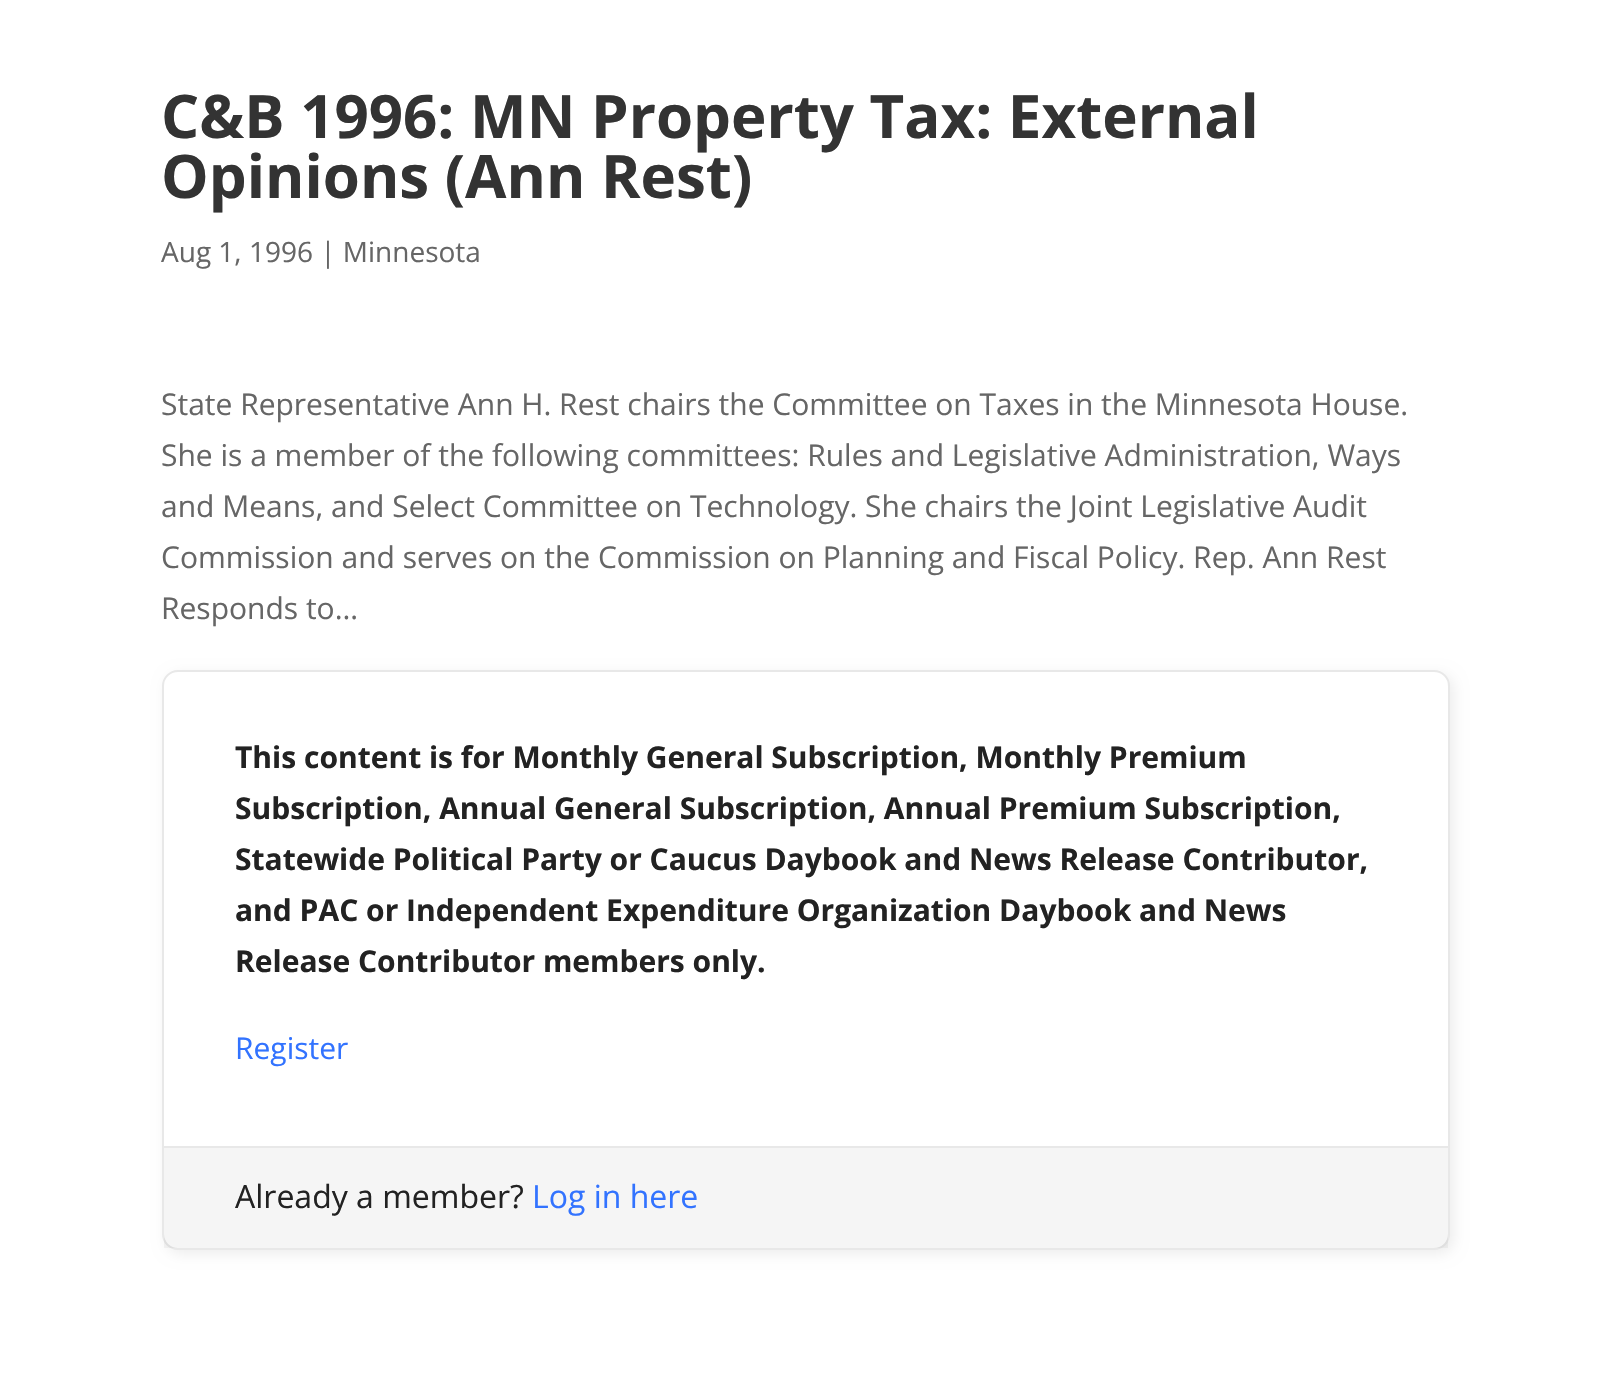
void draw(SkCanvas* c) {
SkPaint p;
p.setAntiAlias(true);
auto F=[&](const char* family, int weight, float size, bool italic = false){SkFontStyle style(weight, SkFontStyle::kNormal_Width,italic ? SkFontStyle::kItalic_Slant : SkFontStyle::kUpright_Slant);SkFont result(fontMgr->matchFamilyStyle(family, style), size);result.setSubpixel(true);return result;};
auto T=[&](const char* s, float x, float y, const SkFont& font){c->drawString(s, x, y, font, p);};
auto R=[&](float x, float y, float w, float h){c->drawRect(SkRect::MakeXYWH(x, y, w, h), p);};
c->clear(0xffffffff);
auto f1 = F("Open Sans",700,60);
p.setColor(0xff333333);
T("C&B 1996: MN Property Tax: External",161,138,f1);
T("Opinions (Ann Rest)",161,198,f1);
auto f2 = F("Open Sans",400,28);
p.setColor(0xff666666);
T("Aug 1, 1996 | Minnesota",161,262,f2);
auto f3 = F("Open Sans",400,30);
T("State Representative Ann H. Rest chairs the Committee on Taxes in the Minnesota House.",161,415,f3);
T("She is a member of the following committees: Rules and Legislative Administration, Ways",161,466,f3);
T("and Means, and Select Committee on Technology. She chairs the Joint Legislative Audit",161,517,f3);
T("Commission and serves on the Commission on Planning and Fiscal Policy. Rep. Ann Rest",161,568,f3);
T("Responds to…",161,619,f3);
p.setColor(0x12000000);
p.setMaskFilter(SkMaskFilter::MakeBlur(kNormal_SkBlurStyle, 7));
c->drawRoundRect(SkRect::MakeXYWH(166,674,1288,580),16,16,p);
p.setMaskFilter(nullptr);
p.setColor(0xffffffff);
c->drawRoundRect(SkRect::MakeXYWH(163,671,1286,578),15,15,p);
p.setStroke(true);
p.setStrokeWidth(2);
p.setColor(0xffe8e8e8);
c->drawRoundRect(SkRect::MakeXYWH(163,671,1286,578),15,15,p);
auto f4 = F("Open Sans",700,30);
p.setStroke(false);
p.setColor(0xff222222);
T("This content is for Monthly General Subscription, Monthly Premium",235,768,f4);
T("Subscription, Annual General Subscription, Annual Premium Subscription,",235,819,f4);
T("Statewide Political Party or Caucus Daybook and News Release Contributor,",235,870,f4);
T("and PAC or Independent Expenditure Organization Daybook and News",235,921,f4);
T("Release Contributor members only.",235,972,f4);
p.setColor(0xff3273ff);
T("Register",235,1059,f3);
p.setColor(0x0a000000);
R(164,1148,1284,100);
p.setColor(0xffe8e8e8);
R(164,1146,1284,2);
auto f5 = F("Open Sans",400,32);
p.setColor(0xff222222);
T("Already a member?",235,1208,f5);
p.setColor(0xff3273ff);
T("Log in here",532,1208,f5);
}
